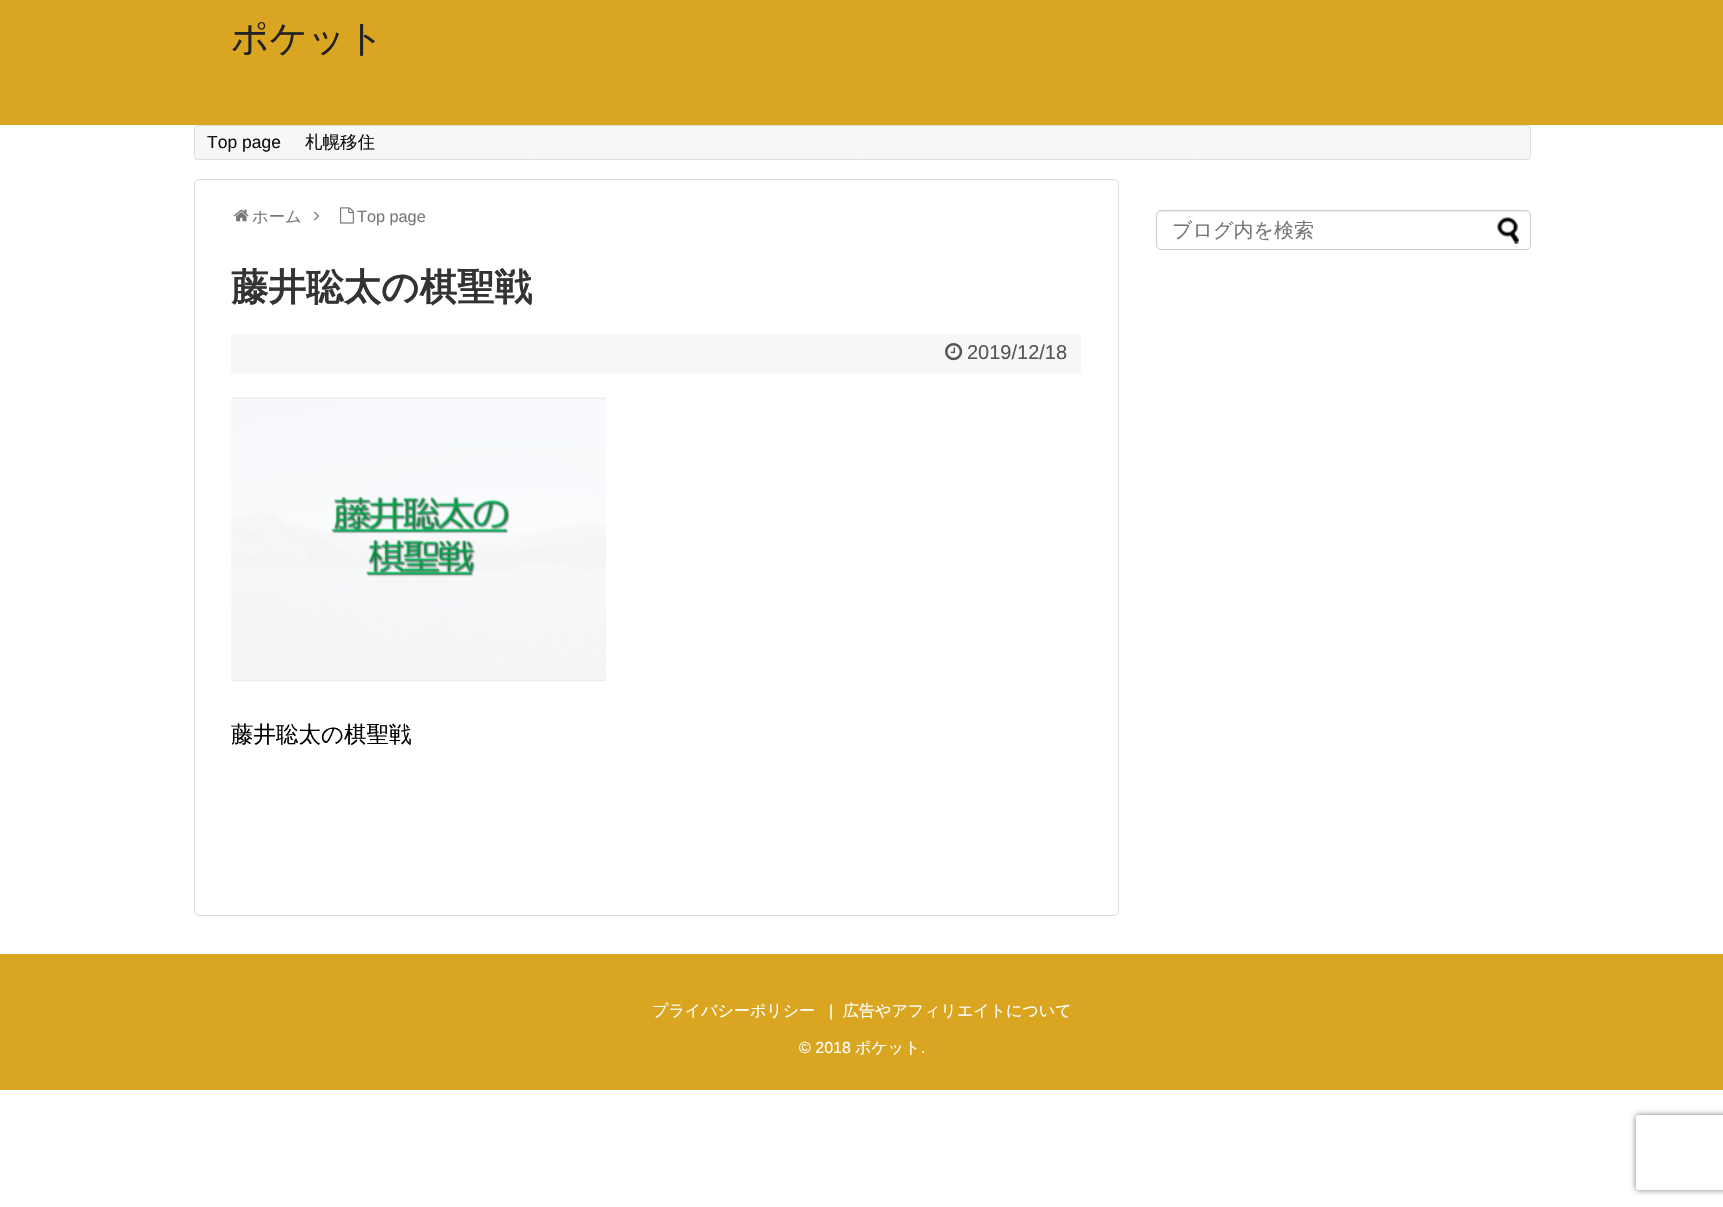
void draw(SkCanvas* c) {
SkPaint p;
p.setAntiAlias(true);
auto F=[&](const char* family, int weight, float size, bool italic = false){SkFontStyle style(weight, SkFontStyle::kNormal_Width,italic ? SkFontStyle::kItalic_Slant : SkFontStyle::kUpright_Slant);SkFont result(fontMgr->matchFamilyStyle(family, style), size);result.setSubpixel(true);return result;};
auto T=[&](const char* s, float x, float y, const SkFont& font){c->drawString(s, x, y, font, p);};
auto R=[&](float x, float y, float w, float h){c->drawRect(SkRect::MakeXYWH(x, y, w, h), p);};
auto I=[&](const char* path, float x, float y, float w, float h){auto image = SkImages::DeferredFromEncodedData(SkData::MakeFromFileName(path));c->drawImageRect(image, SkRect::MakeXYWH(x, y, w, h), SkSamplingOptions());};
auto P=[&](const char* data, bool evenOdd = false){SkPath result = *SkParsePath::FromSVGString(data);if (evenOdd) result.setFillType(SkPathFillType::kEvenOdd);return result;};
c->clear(0xffffffff);
p.setColor(0xffdaa520);
R(0,0,1723,125);
auto f1 = F("WenQuanYi Zen Hei",500,37.5);
p.setColor(0xff222222);
T("ポケット",231,51,f1);
p.setColor(0xfff7f7f7);
c->drawRoundRect(SkRect::MakeXYWH(194.5,125.5,1336,34),3.5,3.5,p);
p.setStroke(true);
p.setStrokeWidth(1);
p.setColor(0xffdddddd);
c->drawRoundRect(SkRect::MakeXYWH(194.5,125.5,1336,34),3.5,3.5,p);
auto f2 = F("Liberation Sans",400,17.5);
p.setStroke(false);
p.setColor(0xff111111);
T("Top page",207,148,f2);
auto f3 = F("WenQuanYi Zen Hei",500,17.5);
T("札幌移住",305,148,f3);
p.setStroke(true);
p.setColor(0xffdddddd);
c->drawRoundRect(SkRect::MakeXYWH(194.5,179.5,924,736),4.5,4.5,p);
I("1.png",234,209,15,13);
auto f4 = F("WenQuanYi Zen Hei",500,16.25);
p.setStroke(false);
p.setColor(0xff777777);
T("ホーム",252,222,f4);
I("2.png",313,211,6,10);
I("3.png",340,207,14,17);
auto f5 = F("Liberation Sans",400,16.25);
T("Top page",357,222,f5);
auto f6 = F("WenQuanYi Zen Hei",700,37.5);
p.setColor(0xff333333);
T("藤井聡太の棋聖戦",231,300,f6);
p.setColor(0xfff7f7f7);
R(231,334,850,39);
I("4.png",945,343,18,18);
auto f7 = F("Liberation Sans",400,20);
p.setColor(0xff555555);
T("2019/12/18",967,359,f7);
I("5.png",231,397,376,285);
auto f8 = F("WenQuanYi Zen Hei",500,22.5);
p.setColor(0xff000000);
T("藤井聡太の棋聖戦",231,742,f8);
p.setColor(0xffececec);
c->drawPath(P("M1161 212h365c2 0 4 2 4 4c0-3-1-5-4-5h-364c-3 0-4 2-4 5c0-2 1-4 3-4z"),p);
p.setStroke(true);
p.setColor(0xffcccccc);
c->drawRoundRect(SkRect::MakeXYWH(1156.5,210.5,374,39),4.5,4.5,p);
auto f9 = F("WenQuanYi Zen Hei",500,20);
p.setStroke(false);
p.setColor(0xff777777);
T("ブログ内を検索",1172,237,f9);
I("6.png",1497,217,22,27);
p.setColor(0xffdaa520);
R(0,954,1723,136);
auto f10 = F("WenQuanYi Zen Hei",500,16);
p.setColor(0xffffffff);
T("プライバシーポリシー",652,1016,f10);
auto f11 = F("Liberation Sans",400,16);
T("|",829,1016,f11);
T("広告やアフィリエイトについて",843,1016,f10);
T("© 2018",799,1053,f11);
T("ポケット",855,1053,f10);
T(".",921,1053,f11);
c->save();
c->clipPath(P("M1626 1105h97v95h-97zm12.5 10h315c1.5 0 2.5 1 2.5 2.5v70c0 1.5-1 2.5-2.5 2.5h-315c-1.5 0-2.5-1-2.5-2.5v-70c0-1.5 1-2.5 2.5-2.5z",true),true);
p.setColor(0xff808080);
p.setMaskFilter(SkMaskFilter::MakeBlur(kNormal_SkBlurStyle, 3));
c->drawRoundRect(SkRect::MakeXYWH(1636,1115,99,75),2.5,2.5,p);
p.setMaskFilter(nullptr);
c->restore();
}
